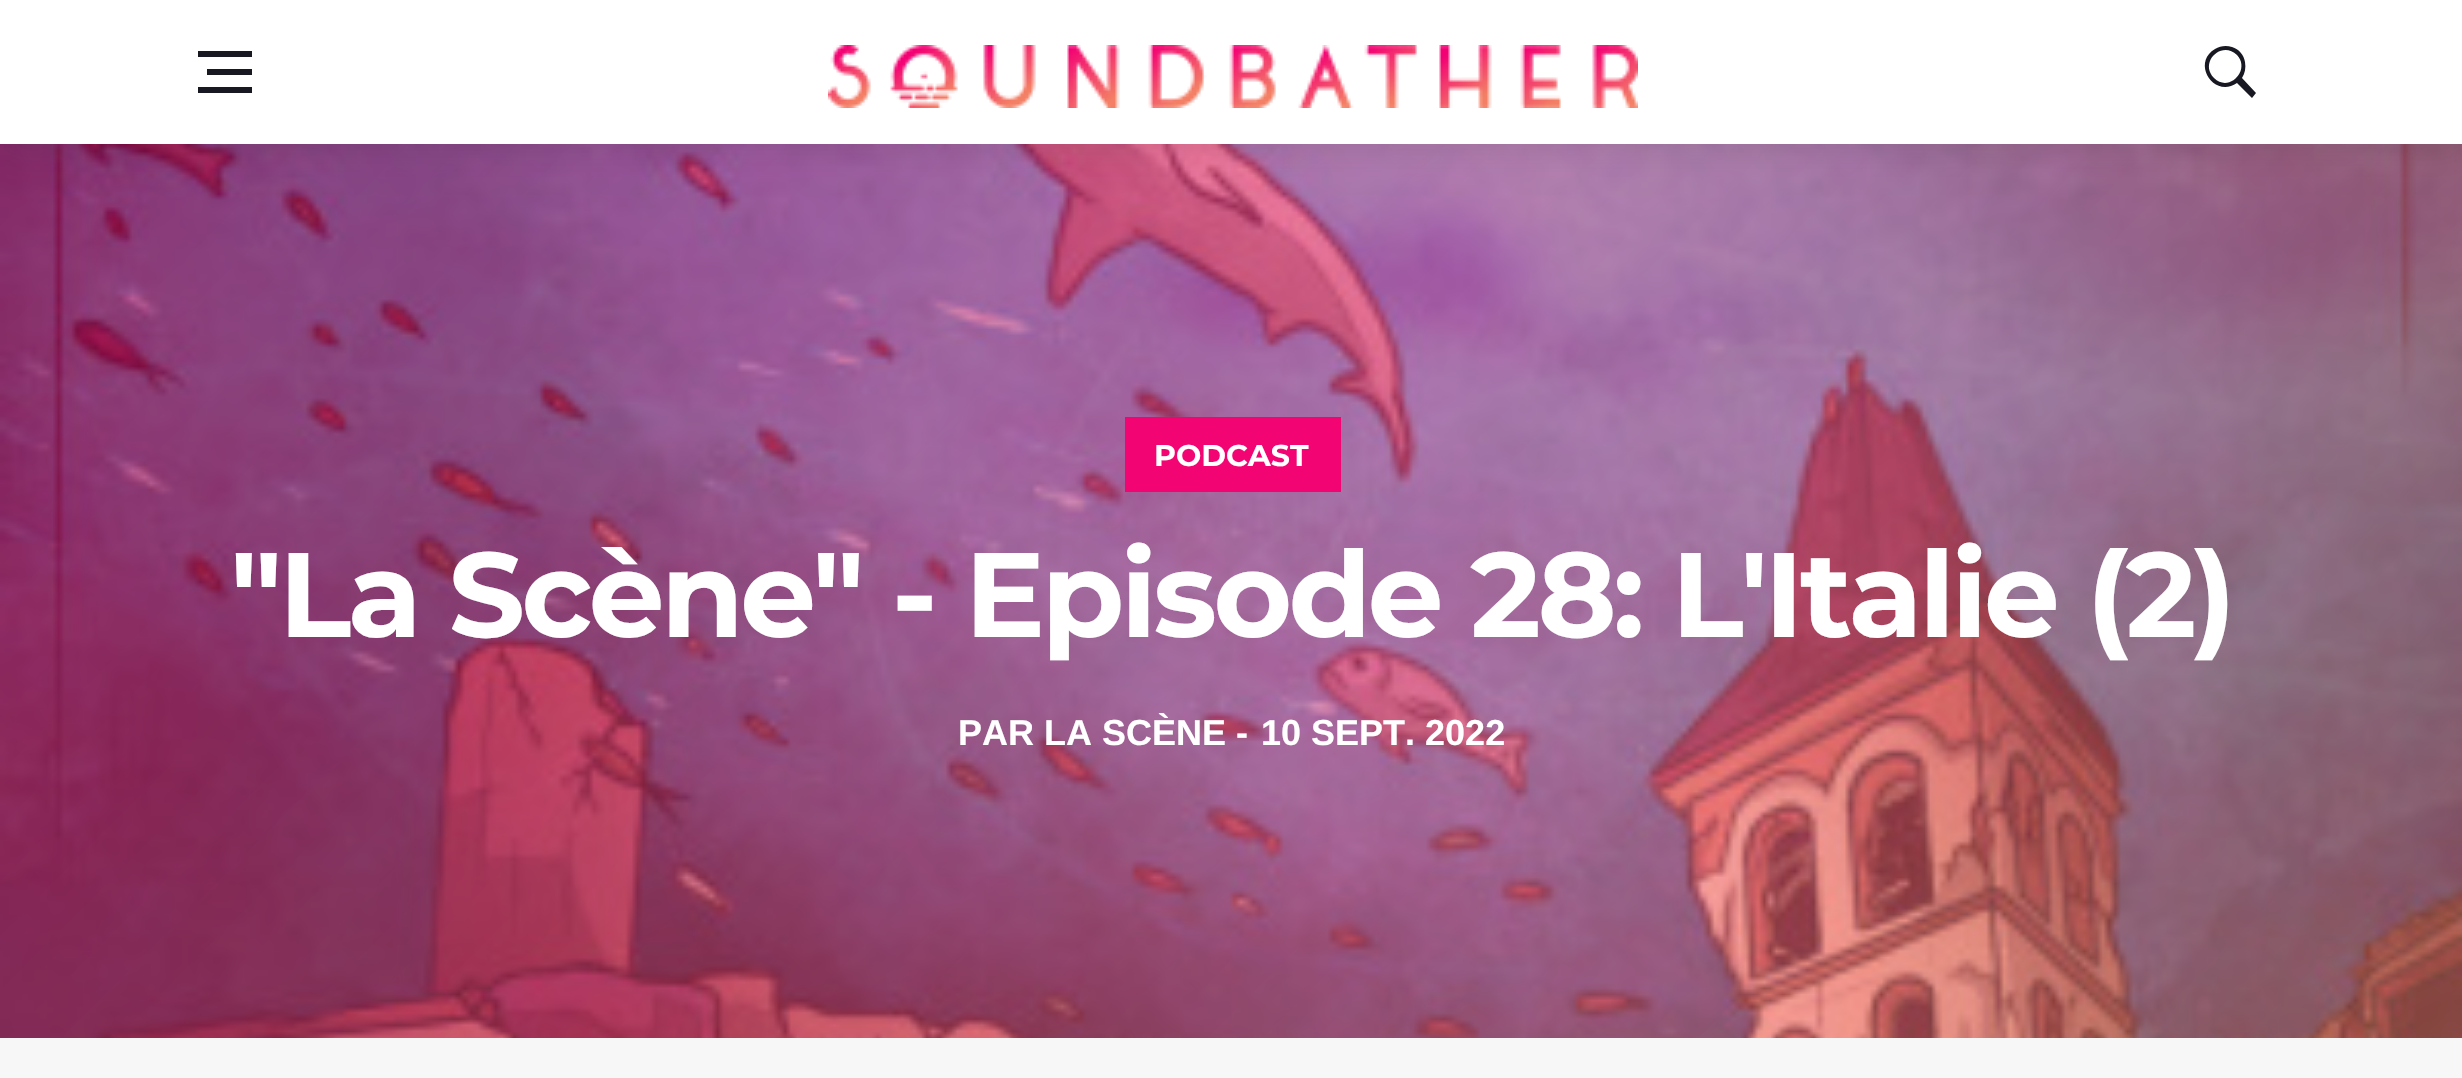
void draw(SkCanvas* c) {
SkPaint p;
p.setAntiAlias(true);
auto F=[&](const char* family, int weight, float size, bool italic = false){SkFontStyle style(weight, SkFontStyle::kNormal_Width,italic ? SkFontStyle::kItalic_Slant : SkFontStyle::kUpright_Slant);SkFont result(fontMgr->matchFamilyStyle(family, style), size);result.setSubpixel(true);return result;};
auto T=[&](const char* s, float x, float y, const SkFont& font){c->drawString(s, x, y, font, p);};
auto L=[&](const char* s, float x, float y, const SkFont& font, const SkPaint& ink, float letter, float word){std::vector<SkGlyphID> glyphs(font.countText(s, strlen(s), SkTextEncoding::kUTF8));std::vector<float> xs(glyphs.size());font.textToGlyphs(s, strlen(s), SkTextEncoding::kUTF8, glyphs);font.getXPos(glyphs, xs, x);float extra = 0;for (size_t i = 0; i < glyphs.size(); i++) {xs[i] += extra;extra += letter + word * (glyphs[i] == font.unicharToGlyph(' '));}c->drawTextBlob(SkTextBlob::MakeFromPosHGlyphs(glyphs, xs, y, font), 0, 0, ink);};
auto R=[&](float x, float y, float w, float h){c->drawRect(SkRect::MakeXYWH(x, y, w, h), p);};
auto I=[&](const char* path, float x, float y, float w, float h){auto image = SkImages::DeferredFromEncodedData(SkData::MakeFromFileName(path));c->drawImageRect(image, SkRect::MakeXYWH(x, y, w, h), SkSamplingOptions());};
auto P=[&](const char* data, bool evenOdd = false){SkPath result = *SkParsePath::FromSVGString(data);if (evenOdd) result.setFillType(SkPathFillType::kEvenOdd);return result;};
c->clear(0xfff7f7f7);
I("2.png",0,144,2462,894);
p.setColor(0x1a000000);
p.setMaskFilter(SkMaskFilter::MakeBlur(kNormal_SkBlurStyle, 15));
c->drawRect(SkRect::MakeXYWH(0,6,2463,144),p);
p.setMaskFilter(nullptr);
p.setColor(0xffffffff);
R(0,0,2462,144);
p.setColor(0xff171821);
R(207,69,45,6);
R(198,51,54,6);
R(198,87,54,6);
I("1.png",828,45,810,63);
c->drawPath(P("M2242 78c3-5 4-10 3-16c-1-7-6-13-13-15c-6-2-12-1-17 2c-24 14-1 50 22 34l15 15l4-5zm-5-23c14 15-8 38-23 23c-15-15 7-38 23-23z"),p);
p.setColor(0xfff20473);
R(1125,417,216,75);
auto f1 = F("Montserrat",700,30);
p.setColor(0xffffffff);
T("PODCAST",1154,466,f1);
auto f2 = F("Montserrat",700,120);
L("\"La Scène\" - Episode 28: L'Italie (2)",230,637,f2,p,-3.6,0);
auto f3 = F("Liberation Sans",700,36);
T("PAR LA SCÈNE -",958,745,f3);
T("10 SEPT. 2022",1261,745,f3);
}
